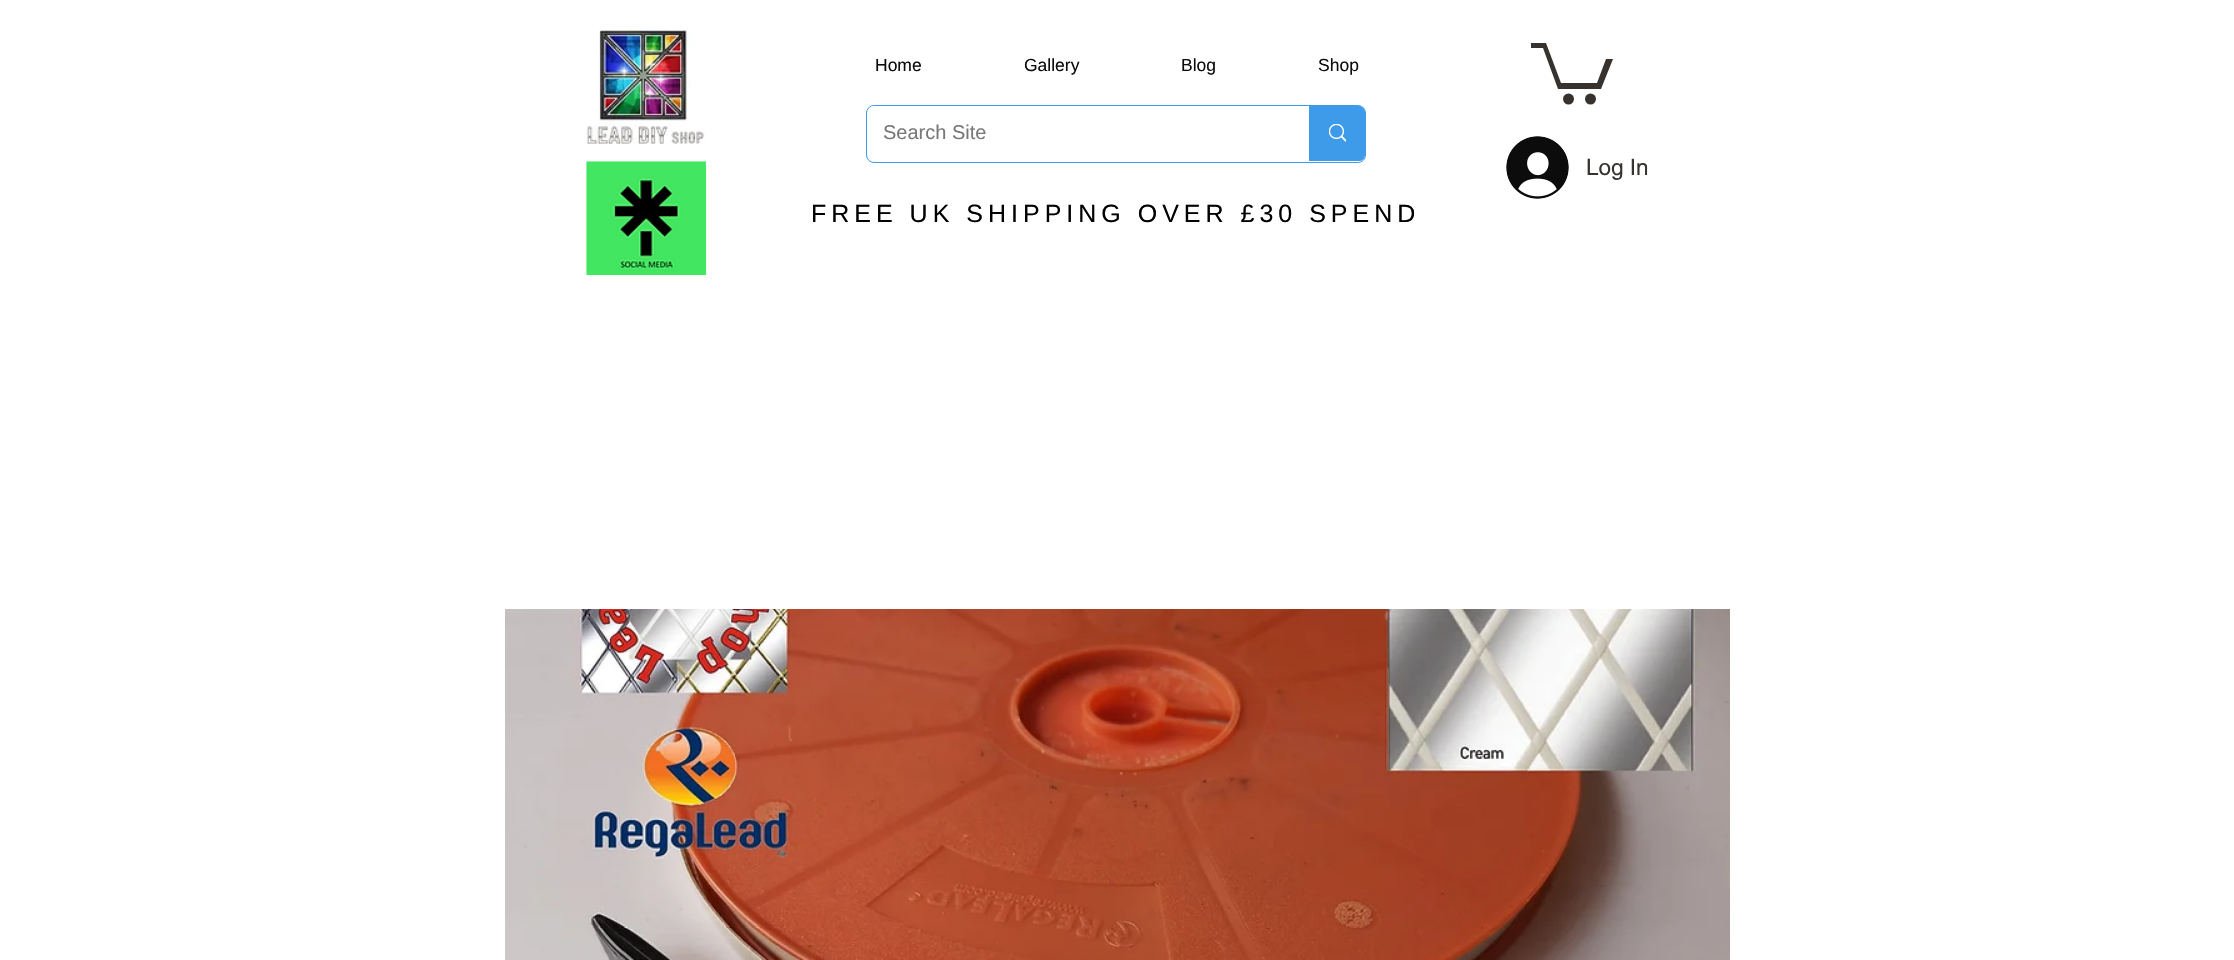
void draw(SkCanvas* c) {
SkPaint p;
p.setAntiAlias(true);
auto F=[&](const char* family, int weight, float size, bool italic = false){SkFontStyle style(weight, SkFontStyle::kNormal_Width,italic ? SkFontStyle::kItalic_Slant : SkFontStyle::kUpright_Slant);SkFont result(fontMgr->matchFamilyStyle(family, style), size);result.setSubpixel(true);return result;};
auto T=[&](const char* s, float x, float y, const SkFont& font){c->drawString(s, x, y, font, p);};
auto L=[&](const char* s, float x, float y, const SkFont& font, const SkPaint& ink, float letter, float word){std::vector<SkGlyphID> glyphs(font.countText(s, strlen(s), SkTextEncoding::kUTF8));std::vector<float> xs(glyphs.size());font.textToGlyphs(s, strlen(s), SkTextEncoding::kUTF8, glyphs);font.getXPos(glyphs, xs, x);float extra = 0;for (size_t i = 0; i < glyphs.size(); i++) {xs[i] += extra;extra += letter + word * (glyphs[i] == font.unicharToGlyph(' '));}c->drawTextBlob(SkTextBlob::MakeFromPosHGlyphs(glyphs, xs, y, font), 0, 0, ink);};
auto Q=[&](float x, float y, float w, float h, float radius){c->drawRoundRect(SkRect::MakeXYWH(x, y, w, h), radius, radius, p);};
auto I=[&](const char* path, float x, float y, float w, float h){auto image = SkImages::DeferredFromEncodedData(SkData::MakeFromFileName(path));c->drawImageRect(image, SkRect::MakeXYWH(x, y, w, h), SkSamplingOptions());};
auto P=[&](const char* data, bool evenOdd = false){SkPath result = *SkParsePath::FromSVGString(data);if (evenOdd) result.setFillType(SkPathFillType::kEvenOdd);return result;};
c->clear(0xffffffff);
I("1.png",585,30,120,114);
auto f1 = F("Liberation Sans",400,17.5);
p.setColor(0xff0c0c0d);
T("Home",875,71,f1);
T("Gallery",1024,71,f1);
T("Blog",1181,71,f1);
T("Shop",1318,71,f1);
p.setColor(0xff37322e);
c->drawPath(P("M1613 59l-12 30h-43l-15-41h-12v-5h15l15 40h36l9-24"),p);
c->drawCircle(1590.5,99,5.5,p);
c->drawCircle(1568.5,99,5.5,p);
p.setStroke(true);
p.setStrokeWidth(1);
p.setColor(0xff3d9be9);
c->drawRoundRect(SkRect::MakeXYWH(866.5,105.5,499,57),7.5,7.5,p);
p.setStroke(false);
p.setColor(0xffffffff);
Q(868,106,497,55,6);
auto f2 = F("Liberation Sans",400,20);
p.setColor(0xff787878);
T("Search Site",883,139,f2);
p.setColor(0xff3d9be9);
c->drawPath(P("M1309 106h50c3.5 0 6 2.5 6 6v43c0 3.5-2.5 6-6 6h-50z"),p);
I("2.png",1329,124,17,18);
I("3.png",586,161,121,114);
auto f3 = F("Liberation Sans",400,25);
p.setColor(0xff000000);
L("FREE UK SHIPPING OVER £30 SPEND",811,222,f3,p,5,0);
I("4.png",1506,136,63,63);
auto f4 = F("helvetica",400,22.5);
p.setColor(0xff37322e);
T("Log In",1586,175,f4);
I("5.png",505,609,1225,351);
}
